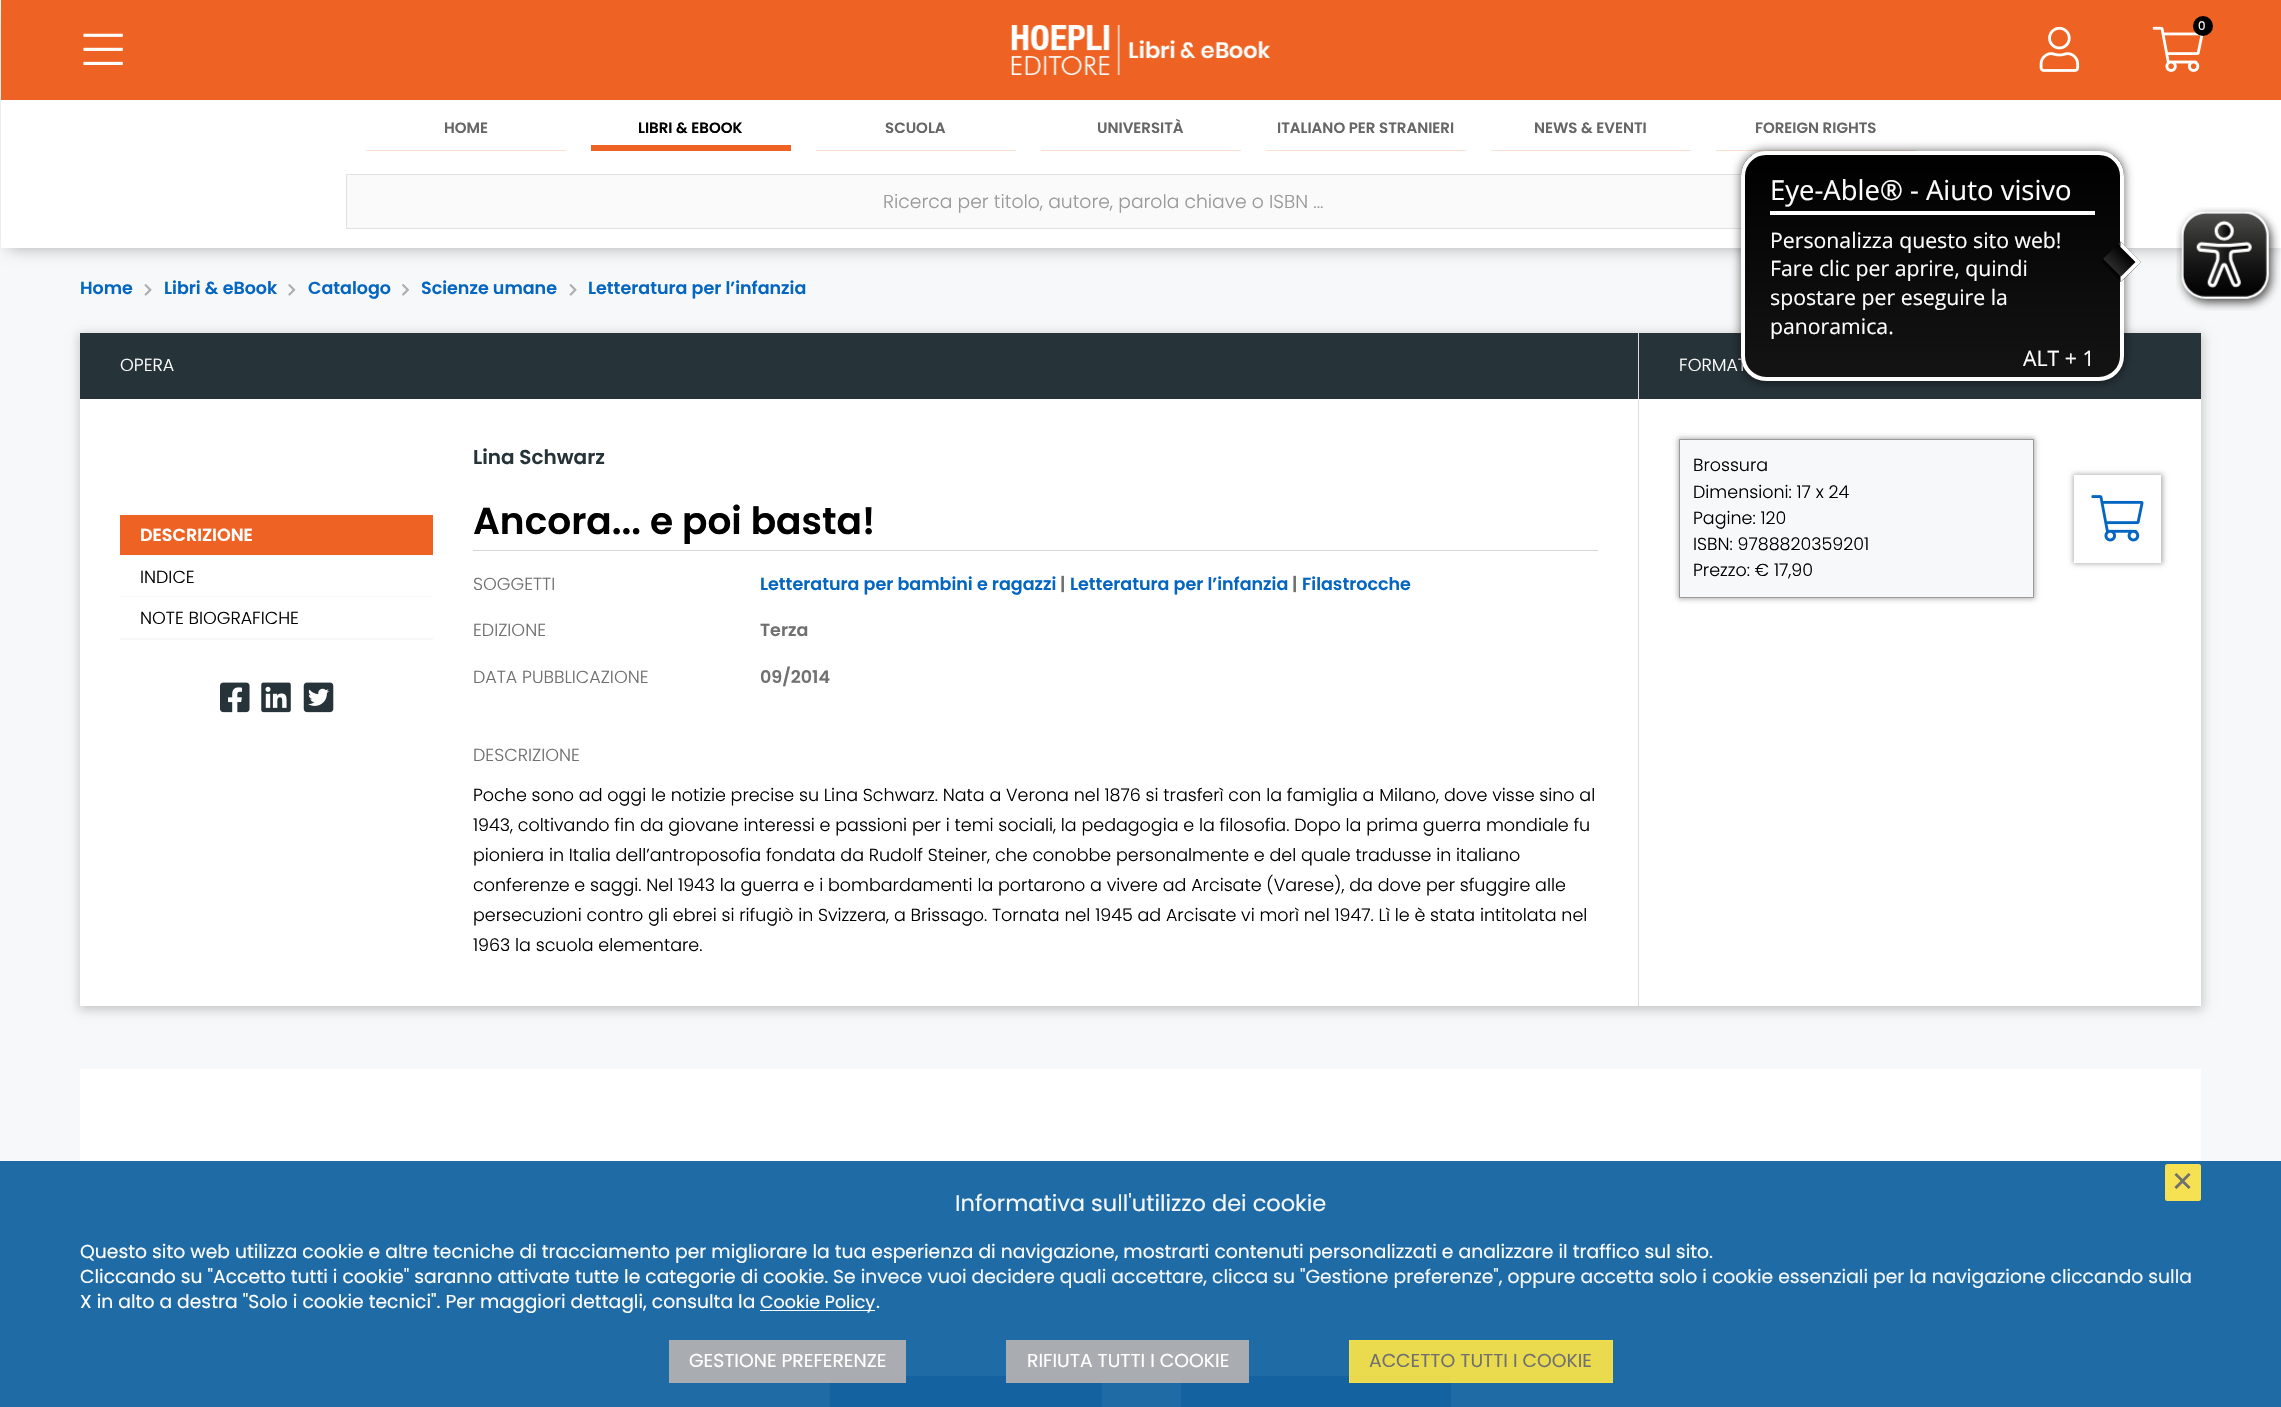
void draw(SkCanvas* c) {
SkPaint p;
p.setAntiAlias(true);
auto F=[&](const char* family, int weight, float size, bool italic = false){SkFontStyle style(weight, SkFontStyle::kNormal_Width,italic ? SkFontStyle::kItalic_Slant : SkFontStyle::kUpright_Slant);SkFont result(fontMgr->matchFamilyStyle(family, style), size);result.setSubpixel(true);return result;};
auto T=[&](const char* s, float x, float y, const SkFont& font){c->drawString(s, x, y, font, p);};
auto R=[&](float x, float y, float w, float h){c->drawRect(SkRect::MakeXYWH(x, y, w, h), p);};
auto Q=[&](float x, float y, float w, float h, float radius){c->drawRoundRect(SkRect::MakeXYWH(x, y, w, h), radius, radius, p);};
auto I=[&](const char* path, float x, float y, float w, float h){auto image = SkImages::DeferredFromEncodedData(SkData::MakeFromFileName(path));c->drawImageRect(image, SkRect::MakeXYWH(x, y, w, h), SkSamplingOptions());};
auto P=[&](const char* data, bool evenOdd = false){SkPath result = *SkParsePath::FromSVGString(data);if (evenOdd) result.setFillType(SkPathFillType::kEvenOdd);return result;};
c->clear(0xfff7f8f9);
p.setColor(0xff1f6ba6);
R(0,1161,2281,246);
p.setColor(0x4d000000);
p.setMaskFilter(SkMaskFilter::MakeBlur(kNormal_SkBlurStyle, 7.5));
c->drawRect(SkRect::MakeXYWH(8,13,2268,235),p);
p.setMaskFilter(nullptr);
p.setColor(0xffffffff);
R(1,100,2280,148);
p.setColor(0xffee6323);
R(1,0,2280,100);
I("1.png",83,33,40,32);
I("2.png",1011,25,260,50);
I("3.png",2152,26,52,46);
p.setColor(0xff000000);
c->drawCircle(2203,26,10,p);
auto f1 = F("Poppins",400,12);
p.setColor(0xffffffff);
T("0",2198,30,f1);
I("4.png",2039,26,41,46);
auto f2 = F("Poppins",600,15);
p.setColor(0xff666666);
T("HOME",444,133,f2);
p.setColor(0xfffce0d3);
R(366,150,200,1);
p.setColor(0xff000000);
T("LIBRI & EBOOK",638,133,f2);
p.setColor(0xffee6323);
R(591,145,200,6);
p.setColor(0xff666666);
T("SCUOLA",885,133,f2);
p.setColor(0xfffce0d3);
R(816,150,200,1);
p.setColor(0xff666666);
T("UNIVERSITÀ",1097,133,f2);
p.setColor(0xfffce0d3);
R(1041,150,200,1);
p.setColor(0xff666666);
T("ITALIANO PER STRANIERI",1277,133,f2);
p.setColor(0xfffce0d3);
R(1266,150,200,1);
p.setColor(0xff666666);
T("NEWS & EVENTI",1534,133,f2);
p.setColor(0xfffce0d3);
R(1491,150,200,1);
p.setColor(0xff666666);
T("FOREIGN RIGHTS",1755,133,f2);
p.setColor(0xfffce0d3);
R(1716,150,200,1);
p.setColor(0xfffafafa);
R(347,175,1395,53);
p.setStroke(true);
p.setStrokeWidth(1);
p.setColor(0xffe1e1e1);
c->drawRect(SkRect::MakeXYWH(346.5,174.5,1514,54),p);
auto f3 = F("Poppins",300,18.75);
p.setStroke(false);
p.setColor(0xff999999);
T("Ricerca per titolo, autore, parola chiave o ISBN ...",883,208,f3);
auto f4 = F("Poppins",600,17.5);
p.setColor(0xff0466c1);
T("Home",80,294,f4);
I("5.png",144,284,8,12);
T("Libri & eBook",164,294,f4);
I("6.png",288,284,8,12);
T("Catalogo",308,294,f4);
I("7.png",402,284,7,12);
T("Scienze umane",421,294,f4);
I("5.png",569,284,8,12);
T("Letteratura per l’infanzia",588,294,f4);
p.setColor(0x33000000);
p.setMaskFilter(SkMaskFilter::MakeBlur(kNormal_SkBlurStyle, 5));
c->drawRect(SkRect::MakeXYWH(79,334,2124,676),p);
p.setMaskFilter(nullptr);
p.setColor(0xffffffff);
R(80,399,1558,607);
p.setColor(0xffdddddd);
R(1638,333,1,673);
p.setColor(0xff263339);
R(80,333,1558,66);
auto f5 = F("Poppins",300,17.5);
p.setColor(0xffffffff);
T("OPERA",120,371,f5);
p.setColor(0xfff7f8f9);
R(120,638,313,2);
p.setColor(0xffee6323);
R(120,515,313,40);
p.setColor(0xfff7f8f9);
R(120,555,313,1);
p.setColor(0xffffffff);
T("DESCRIZIONE",140,541,f4);
p.setColor(0xfff7f8f9);
R(120,596,313,1);
p.setColor(0xff000000);
T("INDICE",140,583,f5);
T("NOTE BIOGRAFICHE",140,624,f5);
I("8.png",220,682,30,31);
I("9.png",261,682,30,31);
I("10.png",303,682,31,31);
auto f6 = F("Poppins",600,20);
p.setColor(0xff263339);
T("Lina Schwarz",473,464,f6);
p.setColor(0xffd6d6d6);
R(473,550,1125,1);
auto f7 = F("Poppins",600,37.5);
p.setColor(0xff000000);
T("Ancora... e poi basta!",473,534,f7);
p.setColor(0xff707070);
T("SOGGETTI",473,590,f5);
p.setColor(0xff0466c1);
T("Letteratura per bambini e ragazzi",760,590,f4);
p.setColor(0xff707070);
T("|",1060,590,f4);
p.setColor(0xff0466c1);
T("Letteratura per l’infanzia",1070,590,f4);
p.setColor(0xff707070);
T("|",1292,590,f4);
p.setColor(0xff0466c1);
T("Filastrocche",1302,590,f4);
p.setColor(0xff707070);
T("EDIZIONE",473,636,f5);
T("Terza",760,636,f4);
T("DATA PUBBLICAZIONE",473,683,f5);
T("09/2014",760,683,f4);
T("DESCRIZIONE",473,761,f5);
p.setColor(0xff000000);
T("Poche sono ad oggi le notizie precise su Lina Schwarz. Nata a Verona nel 1876 si trasferì con la famiglia a Milano, dove visse sino al",473,801,f5);
T("1943, coltivando fin da giovane interessi e passioni per i temi sociali, la pedagogia e la filosofia. Dopo la prima guerra mondiale fu",473,831,f5);
T("pioniera in Italia dell’antroposofia fondata da Rudolf Steiner, che conobbe personalmente e del quale tradusse in italiano",473,861,f5);
T("conferenze e saggi. Nel 1943 la guerra e i bombardamenti la portarono a vivere ad Arcisate (Varese), da dove per sfuggire alle",473,891,f5);
T("persecuzioni contro gli ebrei si rifugiò in Svizzera, a Brissago. Tornata nel 1945 ad Arcisate vi morì nel 1947. Lì le è stata intitolata nel",473,921,f5);
T("1963 la scuola elementare.",473,951,f5);
p.setColor(0xffffffff);
R(1639,399,562,607);
p.setColor(0xff263339);
R(1639,333,562,66);
p.setColor(0xffffffff);
T("FORMAT",1679,371,f5);
p.setColor(0x4d000000);
p.setMaskFilter(SkMaskFilter::MakeBlur(kNormal_SkBlurStyle, 2.5));
c->drawRect(SkRect::MakeXYWH(1678,438,357,161),p);
p.setMaskFilter(nullptr);
p.setColor(0xfff7f8f9);
c->drawRect(SkRect::MakeXYWH(1679.5,439.5,354,158),p);
p.setStroke(true);
p.setColor(0xff999999);
c->drawRect(SkRect::MakeXYWH(1679.5,439.5,354,158),p);
p.setStroke(false);
p.setColor(0xff000000);
T("Brossura",1693,471,f5);
T("Dimensioni: 17 x 24",1693,498,f5);
T("Pagine: 120",1693,524,f5);
T("ISBN: 9788820359201",1693,550,f5);
T("Prezzo: € 17,90",1693,576,f5);
c->save();
c->clipPath(P("M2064 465h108v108h-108zm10 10h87v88h-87z",true),true);
p.setColor(0x4d000000);
p.setMaskFilter(SkMaskFilter::MakeBlur(kNormal_SkBlurStyle, 2.5));
c->drawRect(SkRect::MakeXYWH(2073,474,90,90),p);
p.setMaskFilter(nullptr);
c->restore();
I("11.png",2091,495,53,47);
p.setColor(0xffffffff);
R(80,1069,2121,92);
p.setColor(0xff14629f);
R(830,1376,272,31);
R(1181,1376,270,31);
p.setColor(0x80000000);
p.setMaskFilter(SkMaskFilter::MakeBlur(kNormal_SkBlurStyle, 5));
c->drawRoundRect(SkRect::MakeXYWH(1740,150,385,233),26,26,p);
p.setMaskFilter(nullptr);
c->save();
c->clipPath(P("M1766 151h333c14 0 25 11 25 25v180c0 14-11 25-25 25h-333c-14 0-25-11-25-25v-180c0-14 11-25 25-25z"),true);
{
const SkColor colors[] = {0xff000000,0xff141414};
const float stops[] = {0,1};
const SkPoint ends[] = {{1933,155}, {1933,378}};
p.setShader(SkGradientShader::MakeLinear(ends, colors, stops, 2, SkTileMode::kClamp));
p.setAlpha(255);
}
R(1741,155,383,223);
c->restore();
p.setStroke(true);
p.setStrokeWidth(4);
p.setShader(nullptr);
p.setColor(0xffffffff);
c->drawRoundRect(SkRect::MakeXYWH(1743,153,379,226),23,23,p);
p.setStroke(false);
R(1770,211,325,4);
auto f8 = F("Open Sans",400,27.5);
T("Eye-Able® - Aiuto visivo",1770,200,f8);
auto f9 = F("Open Sans",400,21.25);
T("Personalizza questo sito web!",1770,248,f9);
T("Fare clic per aprire, quindi",1770,276,f9);
T("spostare per eseguire la",1770,305,f9);
T("panoramica.",1770,334,f9);
{
const SkColor colors[] = {0xff000000,0xff2b2b2b};
const float stops[] = {0,1};
const SkPoint ends[] = {{2143,239}, {2128,254}};
p.setShader(SkGradientShader::MakeLinear(ends, colors, stops, 2, SkTileMode::kClamp));
p.setAlpha(255);
}
c->drawPath(P("M2120.5 241.5l20.5 20.5l-2.5 2.5l-20.5-20.5z"),p);
{
const SkColor colors[] = {0xff000000,0xff2b2b2b};
const float stops[] = {0,1};
const SkPoint ends[] = {{2128,254}, {2113,269}};
p.setShader(SkGradientShader::MakeLinear(ends, colors, stops, 2, SkTileMode::kClamp));
p.setAlpha(255);
}
c->drawPath(P("M2103 259l15-15l20.5 20.5l-15 15z"),p);
{
const SkColor colors[] = {0xff000000,0xff2b2b2b};
const float stops[] = {0,1};
const SkPoint ends[] = {{2113,269}, {2098,284}};
p.setShader(SkGradientShader::MakeLinear(ends, colors, stops, 2, SkTileMode::kClamp));
p.setAlpha(255);
}
c->drawPath(P("M2123.5 279.5l-3 2.5l-20-20l2.5-3z"),p);
p.setShader(nullptr);
p.setColor(0xffffffff);
c->drawPath(P("M2120.5 241.5l20.5 20.5h-5.5l-15-15zm20.5 20.5l-20.5 20v-5l15-15z"),p);
T("ALT + 1",2023,366,f9);
I("12.png",2176,207,104,104);
p.setColor(0xfff5e152);
Q(2165,1164,36,37,2.5);
auto f10 = F("DejaVu Sans",400,27.5);
p.setColor(0xff707070);
T("✕",2171,1191,f10);
auto f11 = F("Poppins",400,22.5);
p.setColor(0xfff4f8fa);
T("Informativa sull'utilizzo dei cookie",955,1211,f11);
auto f12 = F("Poppins",400,18.75);
p.setColor(0xffffffff);
T("Questo sito web utilizza cookie e altre tecniche di tracciamento per migliorare la tua esperienza di navigazione, mostrarti contenuti personalizzati e analizzare il traffico sul sito.",80,1258,f12);
T("Cliccando su \"Accetto tutti i cookie\" saranno attivate tutte le categorie di cookie.",80,1283,f12);
p.setColor(0xfff4f8fa);
T("Se invece vuoi decidere quali accettare, clicca su \"Gestione preferenze\", oppure accetta solo i cookie essenziali per la navigazione cliccando sulla",833,1283,f12);
p.setColor(0xffffffff);
T("X in alto a destra \"Solo i cookie tecnici\". Per maggiori dettagli, consulta la",80,1308,f12);
R(760,1310,115,1);
auto f13 = F("Poppins",400,17.5);
T("Cookie Policy",760,1308,f13);
T(".",876,1308,f12);
p.setColor(0xf2b0afb1);
R(669,1340,237,43);
p.setColor(0xffffffff);
T("GESTIONE PREFERENZE",689,1367,f12);
p.setColor(0xf2b0afb1);
R(1006,1340,243,43);
p.setColor(0xffffffff);
T("RIFIUTA TUTTI I COOKIE",1027,1367,f12);
p.setColor(0xf2f4df49);
c->drawRect(SkRect::MakeXYWH(1349.5,1340.5,263,42),p);
p.setStroke(true);
p.setStrokeWidth(1);
p.setColor(0xfff3df49);
c->drawRect(SkRect::MakeXYWH(1349.5,1340.5,263,42),p);
p.setStroke(false);
p.setColor(0xff707070);
T("ACCETTO TUTTI I COOKIE",1369,1367,f12);
}
